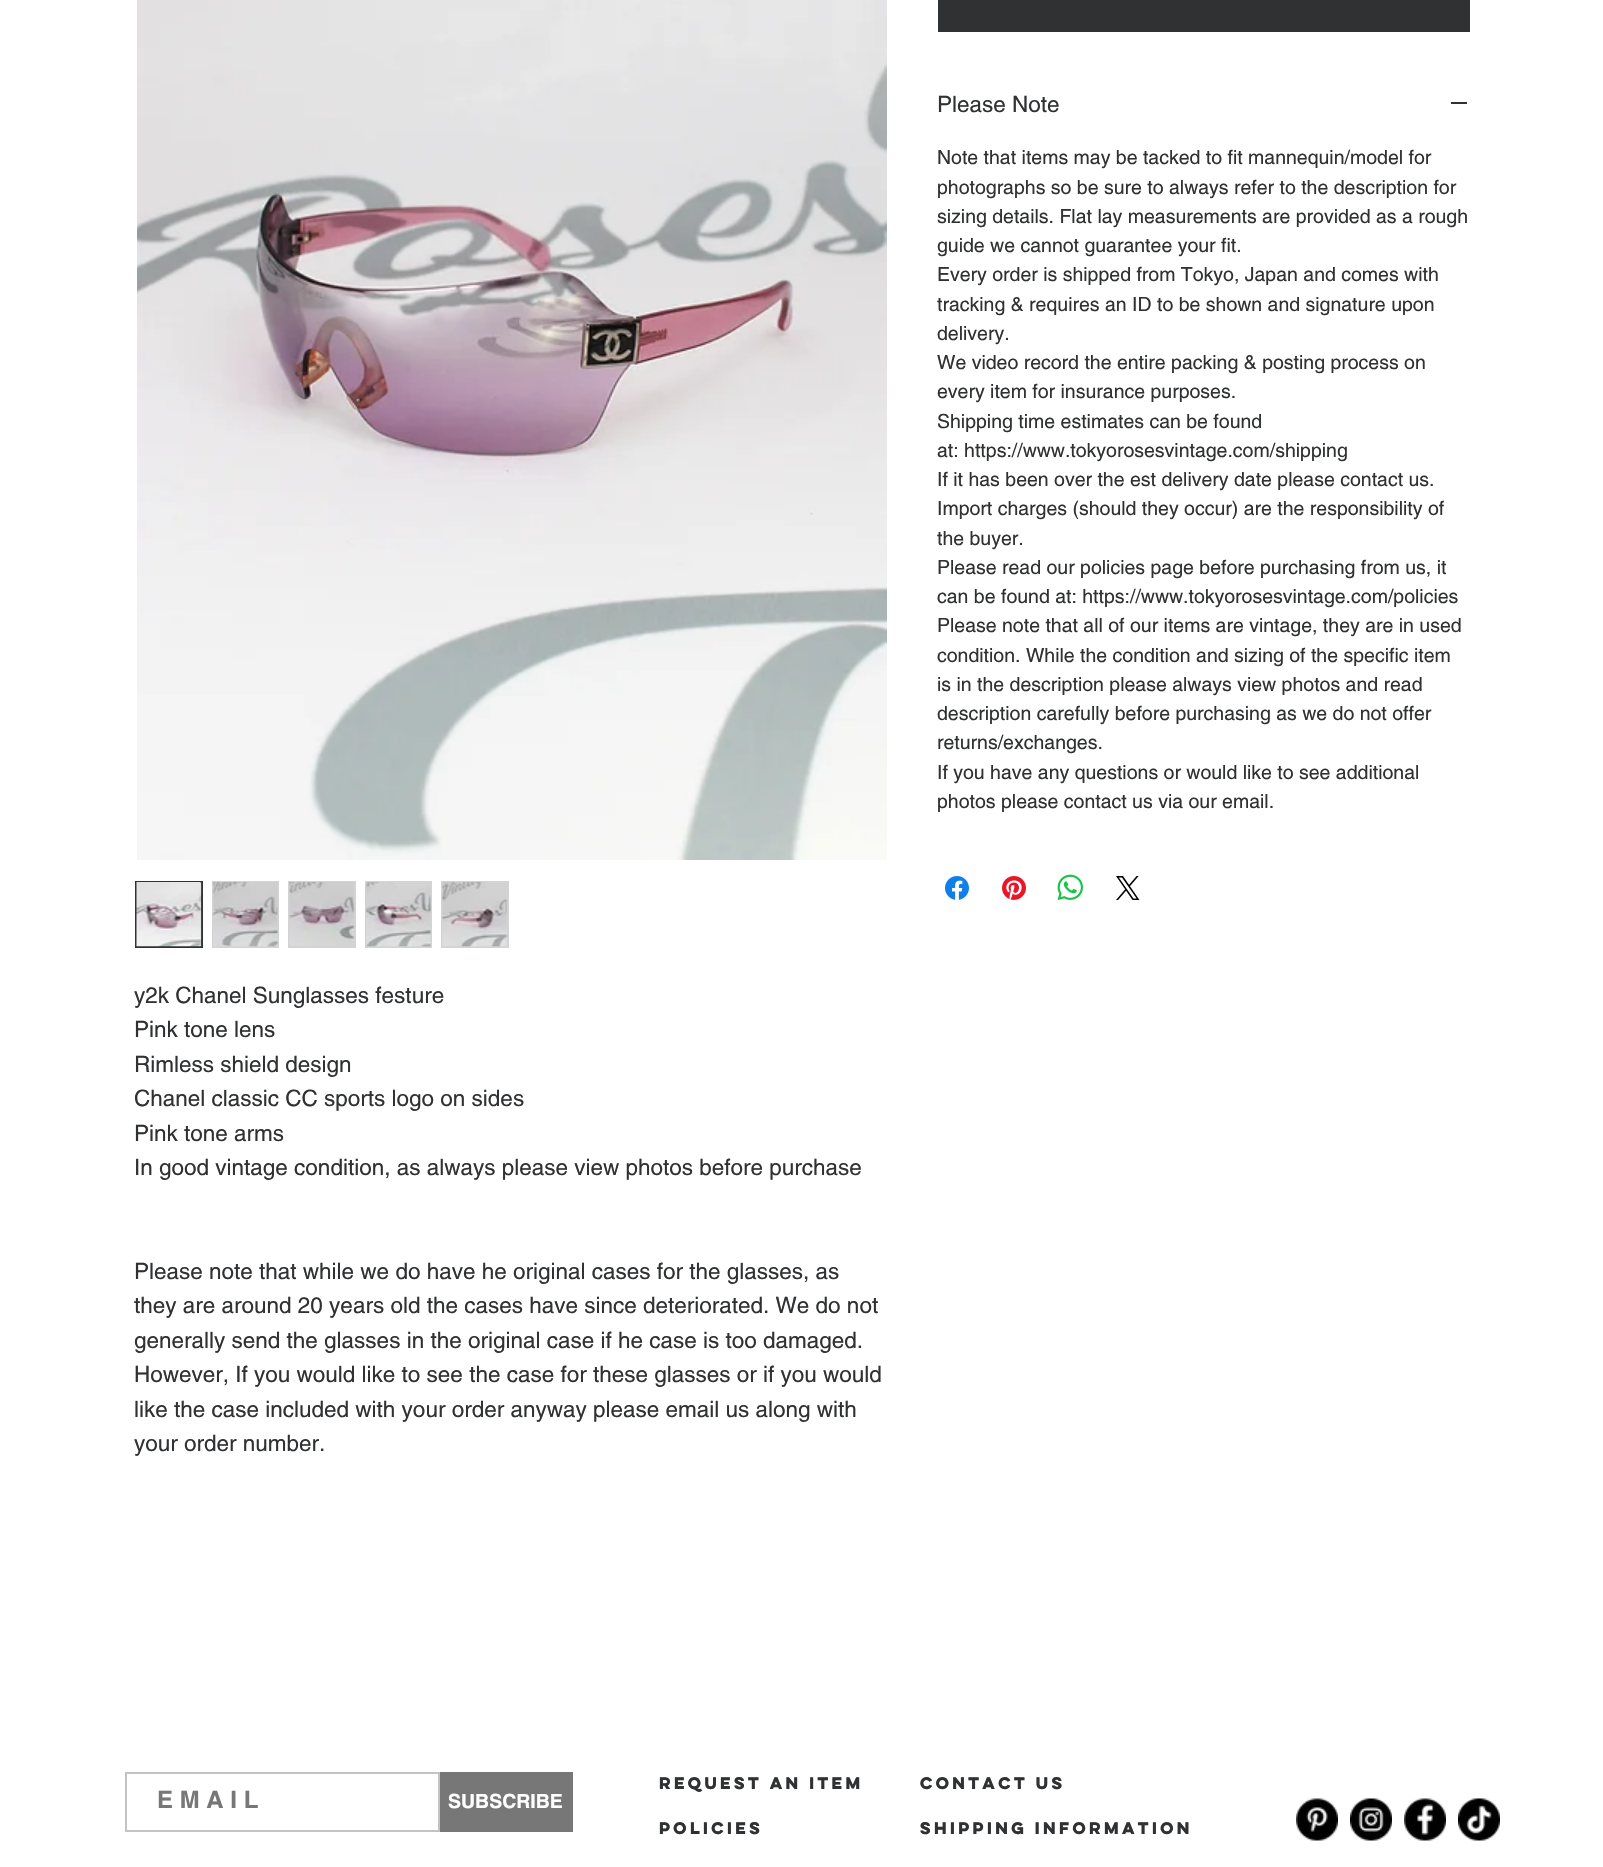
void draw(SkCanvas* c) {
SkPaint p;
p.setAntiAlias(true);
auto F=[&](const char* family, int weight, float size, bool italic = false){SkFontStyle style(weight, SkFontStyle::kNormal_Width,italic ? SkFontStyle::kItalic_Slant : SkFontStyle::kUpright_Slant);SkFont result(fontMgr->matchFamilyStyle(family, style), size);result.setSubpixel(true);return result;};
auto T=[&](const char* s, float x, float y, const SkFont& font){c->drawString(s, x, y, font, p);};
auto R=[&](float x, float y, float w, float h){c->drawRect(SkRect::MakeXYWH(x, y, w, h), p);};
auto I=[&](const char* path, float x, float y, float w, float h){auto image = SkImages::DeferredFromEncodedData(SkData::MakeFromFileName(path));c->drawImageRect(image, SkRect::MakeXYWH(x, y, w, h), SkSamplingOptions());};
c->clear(0xffffffff);
p.setColor(0xff303132);
R(938,0,532,32);
auto f1 = F("helvetica",400,22.5);
T("Please Note",937,112,f1);
R(1451,102,16,2);
auto f2 = F("helvetica",400,19.5);
T("Note that items may be tacked to fit mannequin/model for",937,164,f2);
T("photographs so be sure to always refer to the description for",937,194,f2);
T("sizing details. Flat lay measurements are provided as a rough",937,223,f2);
T("guide we cannot guarantee your fit.",937,252,f2);
T("Every order is shipped from Tokyo, Japan and comes with",937,281,f2);
T("tracking & requires an ID to be shown and signature upon",937,311,f2);
T("delivery.",937,340,f2);
T("We video record the entire packing & posting process on",937,369,f2);
T("every item for insurance purposes.",937,398,f2);
T("Shipping time estimates can be found",937,428,f2);
T("at: https://www.tokyorosesvintage.com/shipping",937,457,f2);
T("If it has been over the est delivery date please contact us.",937,486,f2);
T("Import charges (should they occur) are the responsibility of",937,515,f2);
T("the buyer.",937,545,f2);
T("Please read our policies page before purchasing from us, it",937,574,f2);
T("can be found at: https://www.tokyorosesvintage.com/policies",937,603,f2);
T("Please note that all of our items are vintage, they are in used",937,632,f2);
T("condition. While the condition and sizing of the specific item",937,662,f2);
T("is in the description please always view photos and read",937,691,f2);
T("description carefully before purchasing as we do not offer",937,720,f2);
T("returns/exchanges.",937,749,f2);
T("If you have any questions or would like to see additional",937,779,f2);
T("photos please contact us via our email.",937,808,f2);
I("1.png",945,876,24,24);
I("2.png",1002,876,24,24);
I("3.png",1057,874,26,27);
I("4.png",1116,876,24,24);
I("5.png",137,0,750,860);
p.setColor(0xffd3d3d3);
R(200,883,1,63);
p.setStroke(true);
p.setStrokeWidth(2);
p.setColor(0xff303132);
c->drawRect(SkRect::MakeXYWH(136,882,66,65),p);
I("6.png",136,882,66,65);
p.setStroke(false);
p.setColor(0xffd3d3d3);
R(212,881,67,67);
I("7.png",212,882,66,65);
R(288,881,68,67);
I("8.png",289,882,66,64);
R(365,881,67,67);
I("9.png",365,882,66,65);
R(441,881,68,67);
I("10.png",442,882,66,65);
p.setColor(0xff303132);
T("y2k Chanel Sunglasses festure",134,1003,f1);
T("Pink tone lens",134,1037,f1);
T("Rimless shield design",134,1072,f1);
T("Chanel classic CC sports logo on sides",134,1106,f1);
T("Pink tone arms",134,1141,f1);
T("In good vintage condition, as always please view photos before purchase",134,1175,f1);
T("Please note that while we do have he original cases for the glasses, as",134,1279,f1);
T("they are around 20 years old the cases have since deteriorated. We do not",134,1313,f1);
T("generally send the glasses in the original case if he case is too damaged.",134,1348,f1);
T("However, If you would like to see the case for these glasses or if you would",134,1382,f1);
T("like the case included with your order anyway please email us along with",134,1417,f1);
T("your order number.",134,1451,f1);
p.setStroke(true);
p.setColor(0xffc3c3c4);
c->drawRect(SkRect::MakeXYWH(126,1773,313,58),p);
auto f3 = F("helvetica",700,24);
p.setStroke(false);
p.setColor(0xff777777);
T("E M A I L",157,1808,f3);
R(440,1772,133,60);
auto f4 = F("helvetica",700,19.5);
p.setColor(0xffffffff);
T("SUBSCRIBE",448,1808,f4);
auto f5 = F("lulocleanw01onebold",700,15);
p.setColor(0xff303132);
T("REQUEST AN ITEM",659,1789,f5);
T("policies",659,1834,f5);
T("Contact us",920,1789,f5);
T("Shipping Information",920,1834,f5);
I("11.png",1296,1798,42,43);
I("12.png",1350,1798,42,43);
I("13.png",1404,1798,42,43);
I("14.png",1458,1798,42,43);
}
